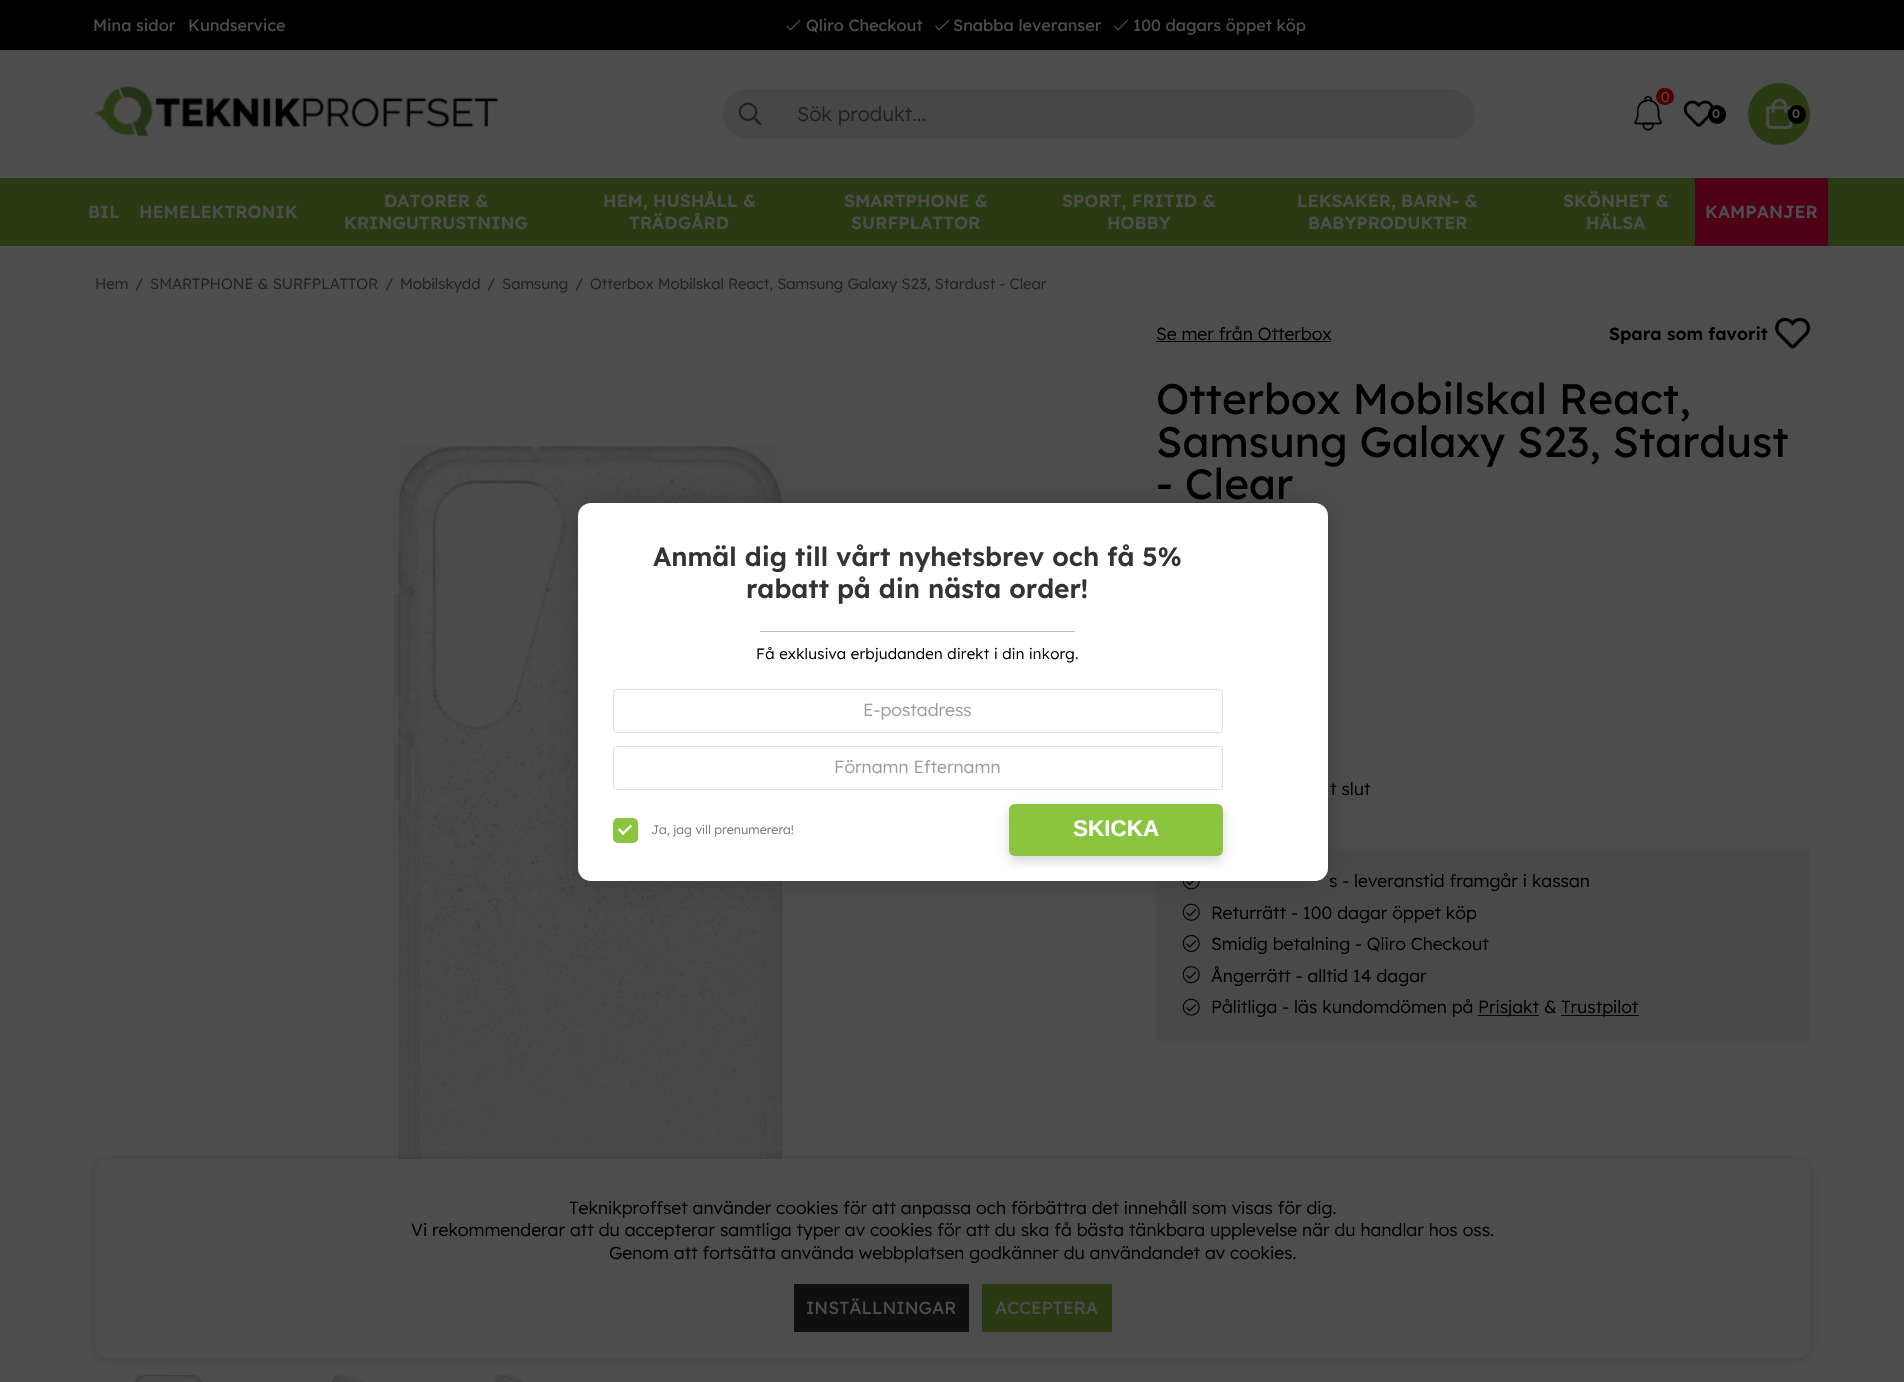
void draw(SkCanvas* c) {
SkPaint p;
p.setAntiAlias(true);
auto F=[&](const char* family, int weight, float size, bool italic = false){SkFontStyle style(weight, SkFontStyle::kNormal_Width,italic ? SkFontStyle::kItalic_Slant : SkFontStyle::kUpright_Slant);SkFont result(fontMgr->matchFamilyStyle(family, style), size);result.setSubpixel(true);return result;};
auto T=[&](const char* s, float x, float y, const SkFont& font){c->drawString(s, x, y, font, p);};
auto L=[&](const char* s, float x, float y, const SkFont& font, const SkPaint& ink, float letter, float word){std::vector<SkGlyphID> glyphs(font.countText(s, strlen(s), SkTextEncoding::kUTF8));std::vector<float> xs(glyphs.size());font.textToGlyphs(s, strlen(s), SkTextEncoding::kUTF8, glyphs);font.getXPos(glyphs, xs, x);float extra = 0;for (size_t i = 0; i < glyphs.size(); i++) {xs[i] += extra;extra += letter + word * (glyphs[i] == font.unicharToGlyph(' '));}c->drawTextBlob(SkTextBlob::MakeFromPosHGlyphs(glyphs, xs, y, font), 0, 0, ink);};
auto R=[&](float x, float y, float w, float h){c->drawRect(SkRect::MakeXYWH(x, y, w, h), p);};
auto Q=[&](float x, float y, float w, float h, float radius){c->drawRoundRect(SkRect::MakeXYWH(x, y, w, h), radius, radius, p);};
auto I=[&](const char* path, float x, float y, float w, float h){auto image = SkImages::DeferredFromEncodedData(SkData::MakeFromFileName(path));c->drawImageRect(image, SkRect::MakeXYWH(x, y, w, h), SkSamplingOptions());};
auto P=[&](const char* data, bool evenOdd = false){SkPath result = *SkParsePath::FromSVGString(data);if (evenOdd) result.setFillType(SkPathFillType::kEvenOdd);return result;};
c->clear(0xff4d4d4d);
p.setColor(0xff000000);
R(0,0,1904,50);
auto f1 = F("Lexend",500,16.25);
p.setColor(0xff4d4d4d);
T("Mina sidor",93,31,f1);
T("Kundservice",188,31,f1);
I("1.png",786,19,15,12);
T("Qliro Checkout",806,31,f1);
I("2.png",935,19,15,12);
T("Snabba leveranser",953,31,f1);
I("3.png",1113,19,15,12);
T("100 dagars öppet köp",1133,31,f1);
I("4.png",95,86,403,51);
p.setColor(0xff474747);
Q(723,89,752,50,25);
I("5.png",738,102,24,24);
auto f2 = F("Lexend",400,20);
p.setColor(0xff212020);
T("Sök produkt...",797,121,f2);
I("6.png",1634,95,28,36);
p.setColor(0xff4d0000);
Q(1656,88,18,17,8.5);
auto f3 = F("Lexend",400,14);
p.setColor(0xff4d4d4d);
T("0",1661,102,f3);
I("7.png",1683,100,31,27);
p.setColor(0xff000000);
Q(1708,105,18,19,9);
auto f4 = F("Lexend",600,12.5);
p.setColor(0xff4d4d4d);
T("0",1712,118,f4);
p.setColor(0xff2a3b13);
c->drawCircle(1779,114,31,p);
I("8.png",1766,98,27,31);
p.setColor(0xff000000);
Q(1788,105,18,19,9);
p.setColor(0xff4d4d4d);
T("0",1792,118,f4);
p.setColor(0xff2a3b13);
R(0,178,1904,68);
auto f5 = F("Lexend",600,17.5);
p.setColor(0xff4d4d4d);
T("BIL",88,218,f5);
T("HEMELEKTRONIK",139,218,f5);
T("DATORER &",384,207,f5);
T("KRINGUTRUSTNING",344,229,f5);
T("HEM, HUSHÅLL &",603,207,f5);
T("TRÄDGÅRD",629,229,f5);
T("SMARTPHONE &",844,207,f5);
T("SURFPLATTOR",851,229,f5);
T("SPORT, FRITID &",1062,207,f5);
T("HOBBY",1107,229,f5);
T("LEKSAKER, BARN- &",1297,207,f5);
T("BABYPRODUKTER",1308,229,f5);
T("SKÖNHET &",1563,207,f5);
T("HÄLSA",1586,229,f5);
p.setColor(0xff4d0017);
R(1695,178,133,68);
p.setColor(0xff4d4d4d);
T("KAMPANJER",1705,218,f5);
auto f6 = F("Lexend",400,15);
p.setColor(0xff212020);
T("Hem",95,289,f6);
T("/",135,289,f6);
T("SMARTPHONE & SURFPLATTOR",150,289,f6);
T("/",385,289,f6);
T("Mobilskydd",400,289,f6);
T("/",487,289,f6);
T("Samsung",502,289,f6);
T("/",575,289,f6);
T("Otterbox Mobilskal React, Samsung Galaxy S23, Stardust - Clear",590,289,f6);
I("9.png",393,446,390,713);
I("10.png",134,1375,69,7);
I("11.png",332,1375,32,7);
I("12.png",495,1375,28,7);
auto f7 = F("Lexend",400,17.5);
p.setColor(0xff000000);
T("Se mer från Otterbox",1156,340,f7);
R(1156,341,175,1);
T("Spara som favorit",1609,340,f5);
I("13.png",1775,317,36,32);
auto f8 = F("Lexend",500,42.5);
T("Otterbox Mobilskal React,",1156,414,f8);
T("Samsung Galaxy S23, Stardust",1156,457,f8);
T("- Clear",1156,499,f8);
T("t slut",1330,795,f7);
p.setColor(0xff494949);
R(1156,849,654,192);
I("14.png",1182,881,18,9);
p.setColor(0xff000000);
T("s - leveranstid framgår i kassan",1329,887,f7);
I("15.png",1182,903,18,18);
T("Returrätt - 100 dagar öppet köp",1211,919,f7);
I("16.png",1182,935,18,17);
T("Smidig betalning - Qliro Checkout",1211,950,f7);
I("17.png",1182,966,18,18);
T("Ångerrätt - alltid 14 dagar",1211,982,f7);
I("15.png",1182,998,18,18);
T("Pålitliga - läs kundomdömen på",1211,1013,f7);
R(1478,1015,61,1);
T("Prisjakt &",1478,1013,f7);
R(1561,1015,78,1);
T("Trustpilot",1561,1013,f7);
p.setColor(0x2e000000);
p.setMaskFilter(SkMaskFilter::MakeBlur(kNormal_SkBlurStyle, 15.5));
c->drawRoundRect(SkRect::MakeXYWH(578,503,750,378),13,13,p);
p.setMaskFilter(nullptr);
p.setColor(0xffffffff);
Q(578,503,750,378,13);
auto f9 = F("Lexend",600,26.25);
p.setColor(0xff333333);
T("Anmäl dig till vårt nyhetsbrev och få 5%",653,566,f9);
T("rabatt på din nästa order!",746,598,f9);
p.setColor(0xffbbbbbb);
R(760,631,315,1);
p.setColor(0xff000000);
L("Få exklusiva erbjudanden direkt i din inkorg.",756,659,f6,p,.25,0);
p.setStroke(true);
p.setStrokeWidth(1);
p.setColor(0xffdddddd);
c->drawRoundRect(SkRect::MakeXYWH(613.5,689.5,609,43),3.5,3.5,p);
p.setStroke(false);
p.setColor(0xff9c9c9c);
T("E-postadress",863,716,f7);
p.setStroke(true);
p.setColor(0xffdddddd);
c->drawRoundRect(SkRect::MakeXYWH(613.5,746.5,609,43),3.5,3.5,p);
p.setStroke(false);
p.setColor(0xff9c9c9c);
T("Förnamn Efternamn",834,773,f7);
p.setColor(0xff8bc53f);
Q(613,818,25,25,5);
p.setColor(0xffffffff);
c->drawPath(P("M630.5 824.5l1.5 2l-9 8.5l-1.5-1.5z"),p);
c->drawPath(P("M619.5 828l5.5 5.5l-2 1.5l-5-5z"),p);
auto f10 = F("Lexend",400,12.5);
p.setColor(0xff7b7b7b);
T("Ja, jag vill prenumerera!",651,834,f10);
p.setColor(0x29000000);
p.setMaskFilter(SkMaskFilter::MakeBlur(kNormal_SkBlurStyle, 6));
c->drawRoundRect(SkRect::MakeXYWH(1009,809,214,52),6,6,p);
p.setMaskFilter(nullptr);
p.setColor(0xff8bc53f);
Q(1009,804,214,52,6);
auto f11 = F("Liberation Sans",700,22.5);
p.setColor(0xffffffff);
T("SKICKA",1073,836,f11);
p.setColor(0x2b0a0b0b);
p.setMaskFilter(SkMaskFilter::MakeBlur(kNormal_SkBlurStyle, 6));
c->drawRoundRect(SkRect::MakeXYWH(95,1160,1715,199),13,13,p);
p.setMaskFilter(nullptr);
p.setColor(0xff4d4d4d);
Q(95,1159,1715,199,13);
p.setColor(0xff000000);
T("Teknikproffset använder cookies för att anpassa och förbättra det innehåll som visas för dig.",569,1214,f7);
T("Vi rekommenderar att du accepterar samtliga typer av cookies för att du ska få bästa tänkbara upplevelse när du handlar hos oss.",411,1236,f7);
T("Genom att fortsätta använda webbplatsen godkänner du användandet av cookies.",609,1259,f7);
p.setColor(0xff0f0f0f);
R(794,1284,175,48);
auto f12 = F("Lexend",500,17.5);
p.setColor(0xff4d4d4d);
T("INSTÄLLNINGAR",806,1314,f12);
p.setColor(0xff2a3b13);
R(982,1284,130,48);
p.setColor(0xff4d4d4d);
T("ACCEPTERA",995,1314,f12);
}
